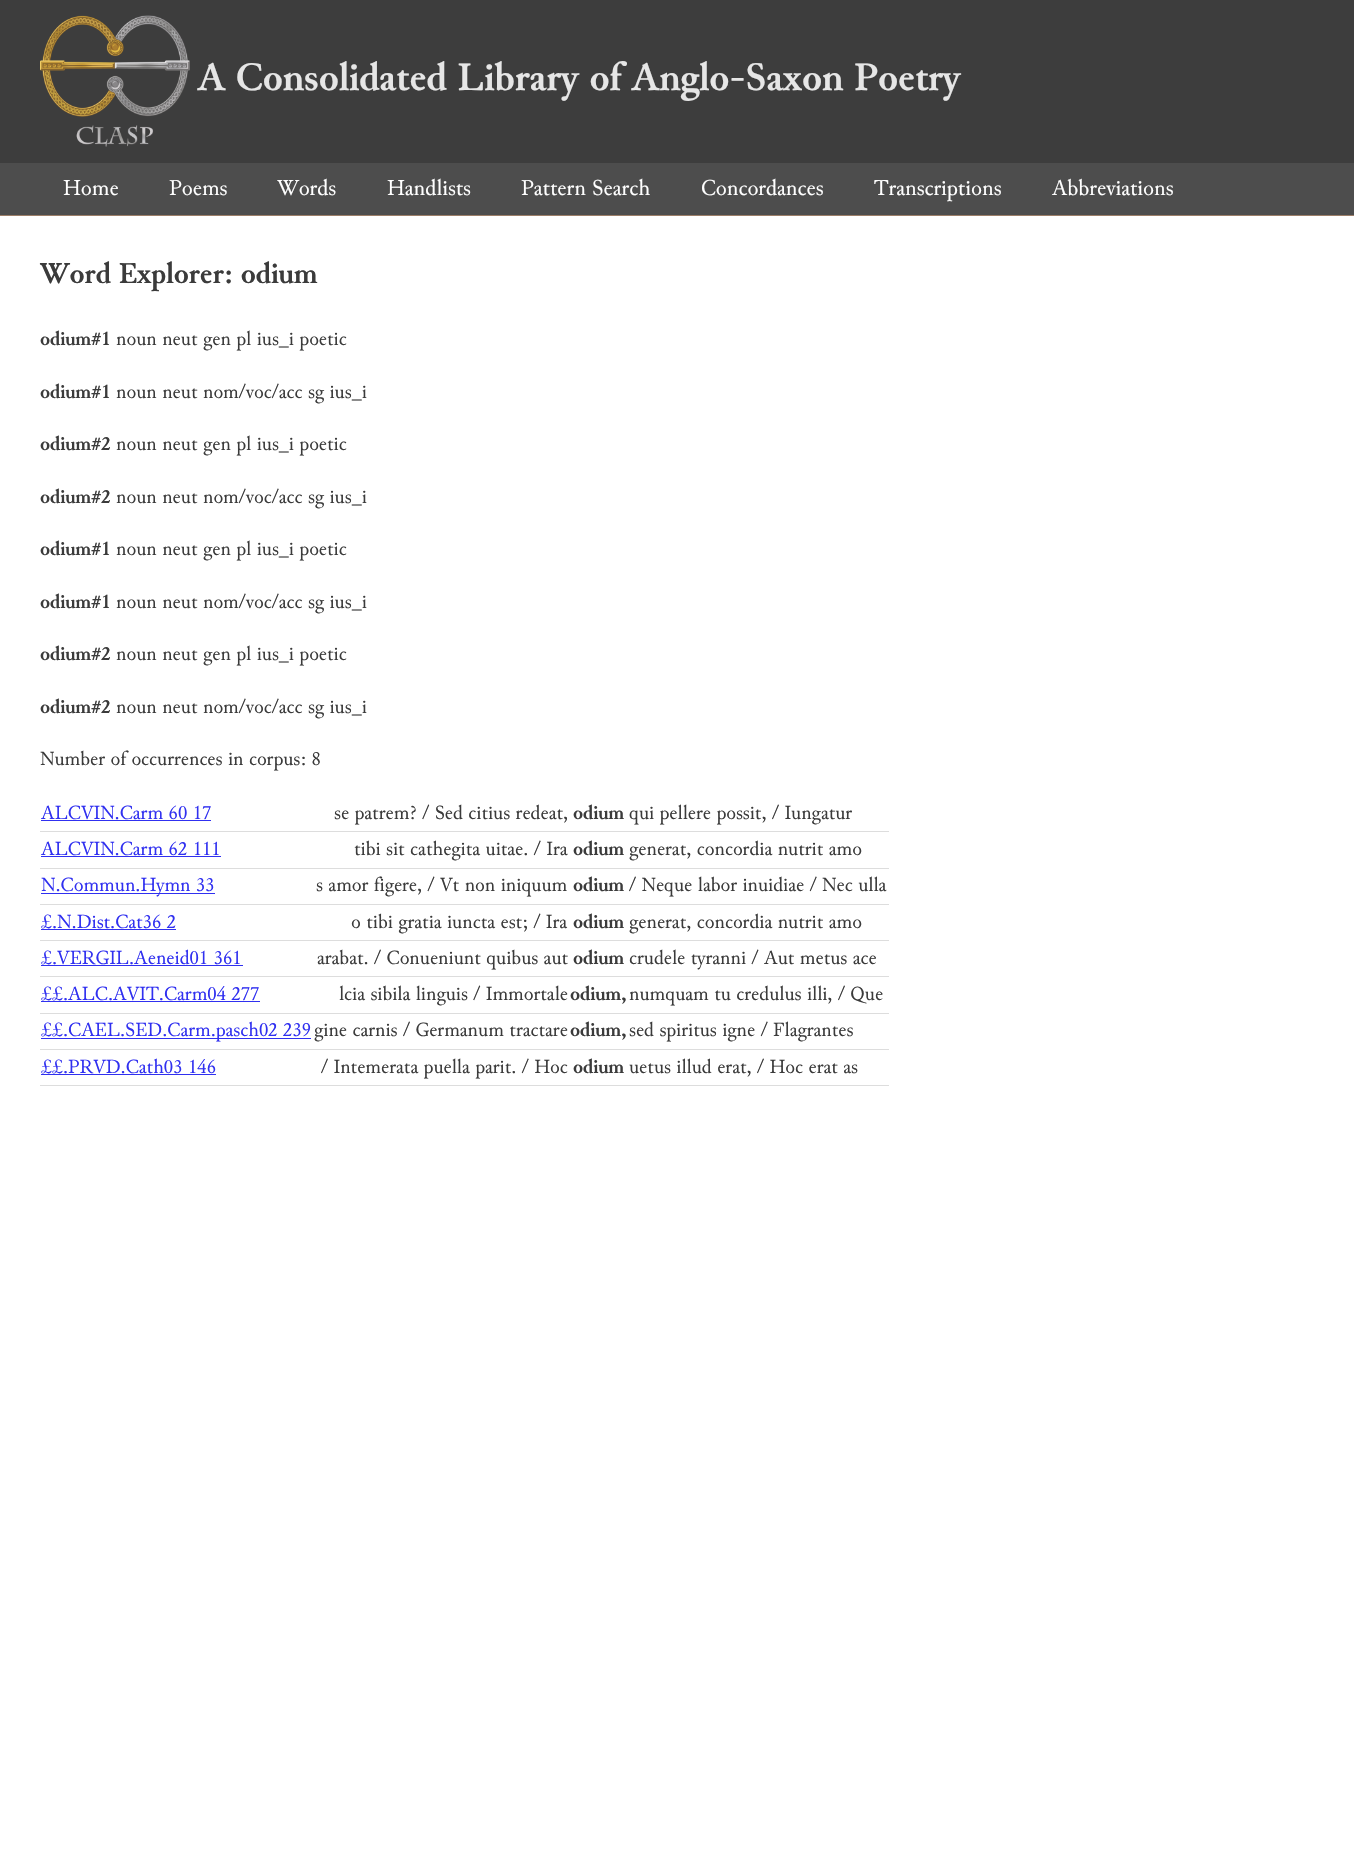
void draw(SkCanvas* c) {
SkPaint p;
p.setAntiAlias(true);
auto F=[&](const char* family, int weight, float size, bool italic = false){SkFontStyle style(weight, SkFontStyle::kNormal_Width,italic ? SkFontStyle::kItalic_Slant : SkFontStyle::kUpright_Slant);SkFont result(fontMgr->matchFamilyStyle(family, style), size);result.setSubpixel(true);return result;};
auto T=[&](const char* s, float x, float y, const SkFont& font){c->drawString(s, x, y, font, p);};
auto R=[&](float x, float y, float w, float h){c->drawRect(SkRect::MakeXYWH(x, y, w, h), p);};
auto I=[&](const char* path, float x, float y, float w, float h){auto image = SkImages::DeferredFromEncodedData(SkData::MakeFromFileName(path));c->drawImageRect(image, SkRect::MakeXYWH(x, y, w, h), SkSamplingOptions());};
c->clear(0xffffffff);
p.setColor(0xff3d3d3d);
R(0,0,1354,163);
I("1.png",40,15,150,132);
auto f1 = F("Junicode",700,40);
p.setColor(0xffe6e6e6);
T("A Consolidated Library of Anglo-Saxon Poetry",198,90,f1);
p.setColor(0xff4d4d4d);
R(0,163,1354,52);
p.setColor(0xff9c7e68);
R(0,215,1354,1);
auto f2 = F("Junicode",400,22.5);
p.setColor(0xffffffff);
T("Home",63,195,f2);
T("Poems",169,195,f2);
T("Words",277,195,f2);
T("Handlists",387,195,f2);
T("Pattern Search",521,195,f2);
T("Concordances",701,195,f2);
T("Transcriptions",874,195,f2);
T("Abbreviations",1052,195,f2);
auto f3 = F("Junicode",700,30);
p.setColor(0xff3b3b3b);
T("Word Explorer: odium",40,283,f3);
auto f4 = F("Junicode",700,20);
T("odium#1",40,345,f4);
auto f5 = F("Junicode",400,20);
T("noun neut gen pl ius_i poetic",116,345,f5);
T("odium#1",40,398,f4);
T("noun neut nom/voc/acc sg ius_i",116,398,f5);
T("odium#2",40,450,f4);
T("noun neut gen pl ius_i poetic",116,450,f5);
T("odium#2",40,503,f4);
T("noun neut nom/voc/acc sg ius_i",116,503,f5);
T("odium#1",40,555,f4);
T("noun neut gen pl ius_i poetic",116,555,f5);
T("odium#1",40,608,f4);
T("noun neut nom/voc/acc sg ius_i",116,608,f5);
T("odium#2",40,660,f4);
T("noun neut gen pl ius_i poetic",116,660,f5);
T("odium#2",40,713,f4);
T("noun neut nom/voc/acc sg ius_i",116,713,f5);
T("Number of occurrences in corpus: 8",40,765,f5);
p.setColor(0xff3030f0);
T("ALCVIN.Carm 60 17",41,819,f5);
R(41,820,170,1);
p.setColor(0xff3b3b3b);
T("se patrem? / Sed citius redeat,",334,819,f5);
T("odium",573,819,f4);
p.setColor(0xffdddddd);
R(40,831,849,1);
p.setColor(0xff3b3b3b);
T("qui pellere possit, / Iungatur",629,819,f5);
p.setColor(0xff3030f0);
T("ALCVIN.Carm 62 111",41,855,f5);
R(41,856,180,1);
p.setColor(0xff3b3b3b);
T("tibi sit cathegita uitae. / Ira",354,855,f5);
T("odium",573,855,f4);
p.setColor(0xffdddddd);
R(40,868,849,1);
p.setColor(0xff3b3b3b);
T("generat, concordia nutrit amo",629,855,f5);
p.setColor(0xff3030f0);
R(41,893,174,1);
T("N.Commun.Hymn 33",41,891,f5);
p.setColor(0xff3b3b3b);
T("s amor figere, / Vt non iniquum",316,891,f5);
T("odium",573,891,f4);
p.setColor(0xffdddddd);
R(40,904,849,1);
p.setColor(0xff3b3b3b);
T("/ Neque labor inuidiae / Nec ulla",629,891,f5);
p.setColor(0xff3030f0);
T("£.N.Dist.Cat36 2",41,928,f5);
R(41,929,135,1);
p.setColor(0xff3b3b3b);
T("o tibi gratia iuncta est; / Ira",351,928,f5);
T("odium",573,928,f4);
p.setColor(0xffdddddd);
R(40,940,849,1);
p.setColor(0xff3b3b3b);
T("generat, concordia nutrit amo",629,928,f5);
p.setColor(0xff3030f0);
T("£.VERGIL.Aeneid01 361",41,964,f5);
R(41,965,202,1);
p.setColor(0xff3b3b3b);
T("arabat. / Conueniunt quibus aut",317,964,f5);
T("odium",573,964,f4);
p.setColor(0xffdddddd);
R(40,976,849,1);
p.setColor(0xff3b3b3b);
T("crudele tyranni / Aut metus ace",629,964,f5);
p.setColor(0xff3030f0);
T("££.ALC.AVIT.Carm04 277",41,1000,f5);
R(41,1001,219,1);
p.setColor(0xff3b3b3b);
T("lcia sibila linguis / Immortale",339,1000,f5);
T("odium,",570,1000,f4);
p.setColor(0xffdddddd);
R(40,1013,849,1);
p.setColor(0xff3b3b3b);
T("numquam tu credulus illi, / Que",629,1000,f5);
p.setColor(0xff3030f0);
R(41,1038,270,1);
T("££.CAEL.SED.Carm.pasch02 239",41,1036,f5);
p.setColor(0xff3b3b3b);
T("gine carnis / Germanum tractare",314,1036,f5);
T("odium,",570,1036,f4);
p.setColor(0xffdddddd);
R(40,1049,849,1);
p.setColor(0xff3b3b3b);
T("sed spiritus igne / Flagrantes",629,1036,f5);
p.setColor(0xff3030f0);
T("££.PRVD.Cath03 146",41,1073,f5);
R(41,1074,175,1);
p.setColor(0xff3b3b3b);
T("/ Intemerata puella parit. / Hoc",321,1073,f5);
T("odium",573,1073,f4);
p.setColor(0xffdddddd);
R(40,1085,849,1);
p.setColor(0xff3b3b3b);
T("uetus illud erat, / Hoc erat as",629,1073,f5);
}
